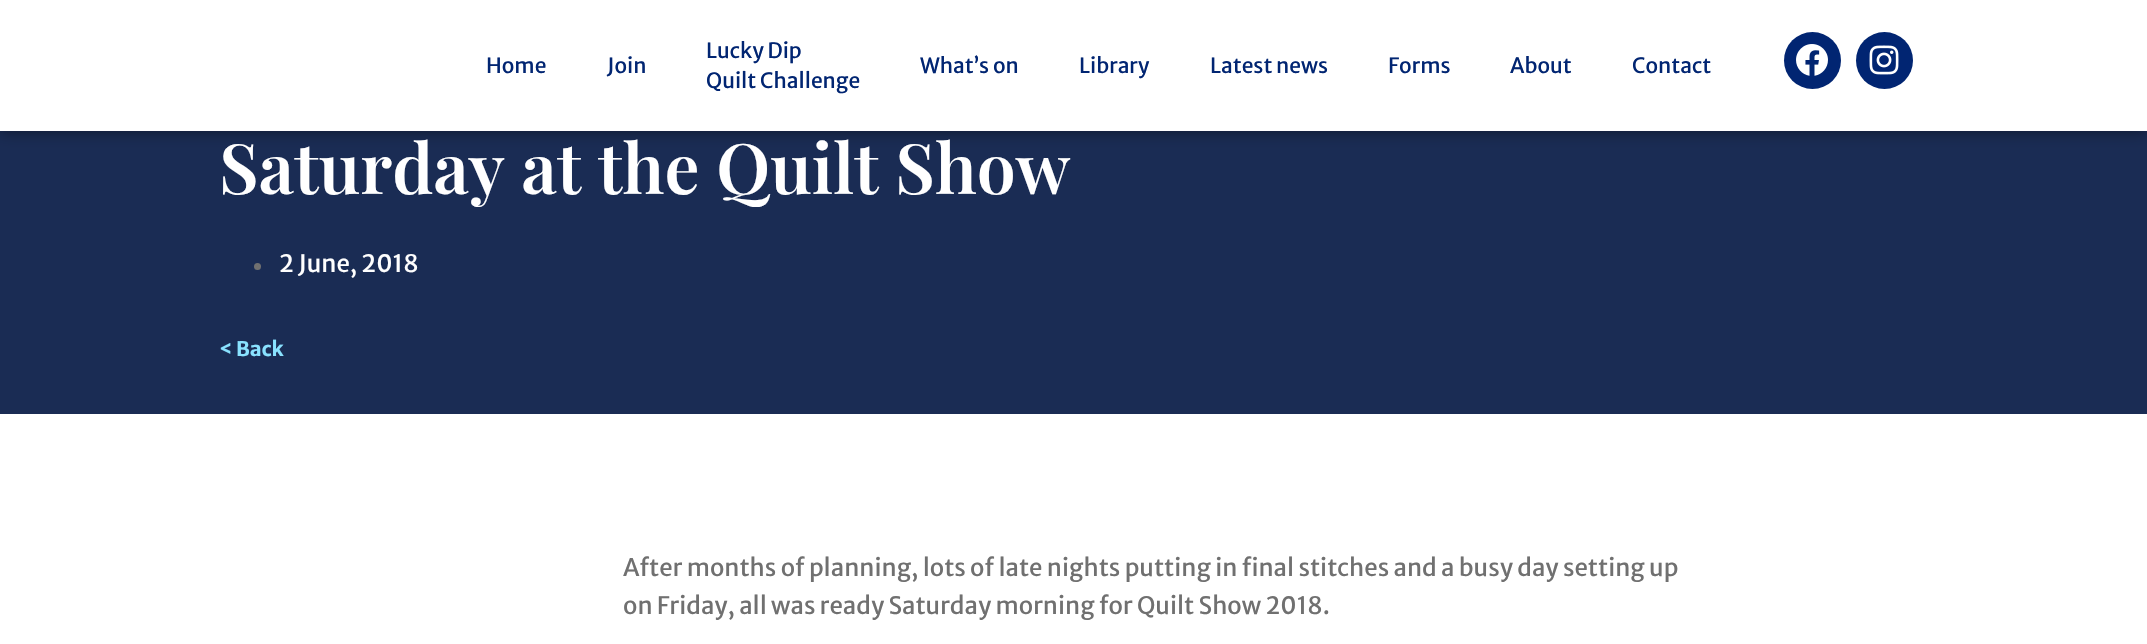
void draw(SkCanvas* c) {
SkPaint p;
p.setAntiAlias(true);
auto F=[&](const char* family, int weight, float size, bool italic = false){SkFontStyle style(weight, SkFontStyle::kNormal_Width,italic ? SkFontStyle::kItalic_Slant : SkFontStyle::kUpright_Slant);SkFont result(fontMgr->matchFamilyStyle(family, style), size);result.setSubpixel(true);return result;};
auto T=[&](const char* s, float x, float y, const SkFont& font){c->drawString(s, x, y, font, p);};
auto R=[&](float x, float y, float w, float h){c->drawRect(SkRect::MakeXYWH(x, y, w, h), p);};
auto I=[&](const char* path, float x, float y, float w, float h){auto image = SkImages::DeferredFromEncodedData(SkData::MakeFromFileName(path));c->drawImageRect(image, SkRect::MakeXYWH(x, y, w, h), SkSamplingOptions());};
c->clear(0xffffffff);
p.setColor(0xff1a2c54);
R(0,131,2147,283);
p.setColor(0x80000000);
p.setMaskFilter(SkMaskFilter::MakeBlur(kNormal_SkBlurStyle, 7.5));
c->drawRect(SkRect::MakeXYWH(0,0,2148,131),p);
p.setMaskFilter(nullptr);
p.setColor(0xffffffff);
R(0,0,2147,131);
auto f1 = F("Merriweather Sans",400,21);
p.setColor(0xff012572);
T("Home",486,73,f1);
T("Join",607,73,f1);
T("Lucky Dip",706,58,f1);
T("Quilt Challenge",706,88,f1);
T("What’s on",920,73,f1);
T("Library",1079,73,f1);
T("Latest news",1210,73,f1);
T("Forms",1388,73,f1);
T("About",1510,73,f1);
T("Contact",1632,73,f1);
c->drawCircle(1812.5,60.5,28.5,p);
I("1.png",1796,44,32,32);
c->drawCircle(1884.5,60.5,28.5,p);
I("2.png",1869,45,30,30);
auto f2 = F("Playfair Display",600,69.6);
p.setColor(0xffffffff);
T("Saturday at the Quilt Show",219,194,f2);
p.setColor(0xff707070);
c->drawCircle(257.5,266.5,3.5,p);
auto f3 = F("Merriweather Sans",400,24);
p.setColor(0xffffffff);
T("2 June, 2018",279,272,f3);
auto f4 = F("Merriweather Sans",700,20);
p.setColor(0xff89e2ff);
T("< Back",219,356,f4);
p.setColor(0xff707070);
T("After months of planning, lots of late nights putting in final stitches and a busy day setting up",623,576,f3);
T("on Friday, all was ready Saturday morning for Quilt Show 2018.",623,614,f3);
}
